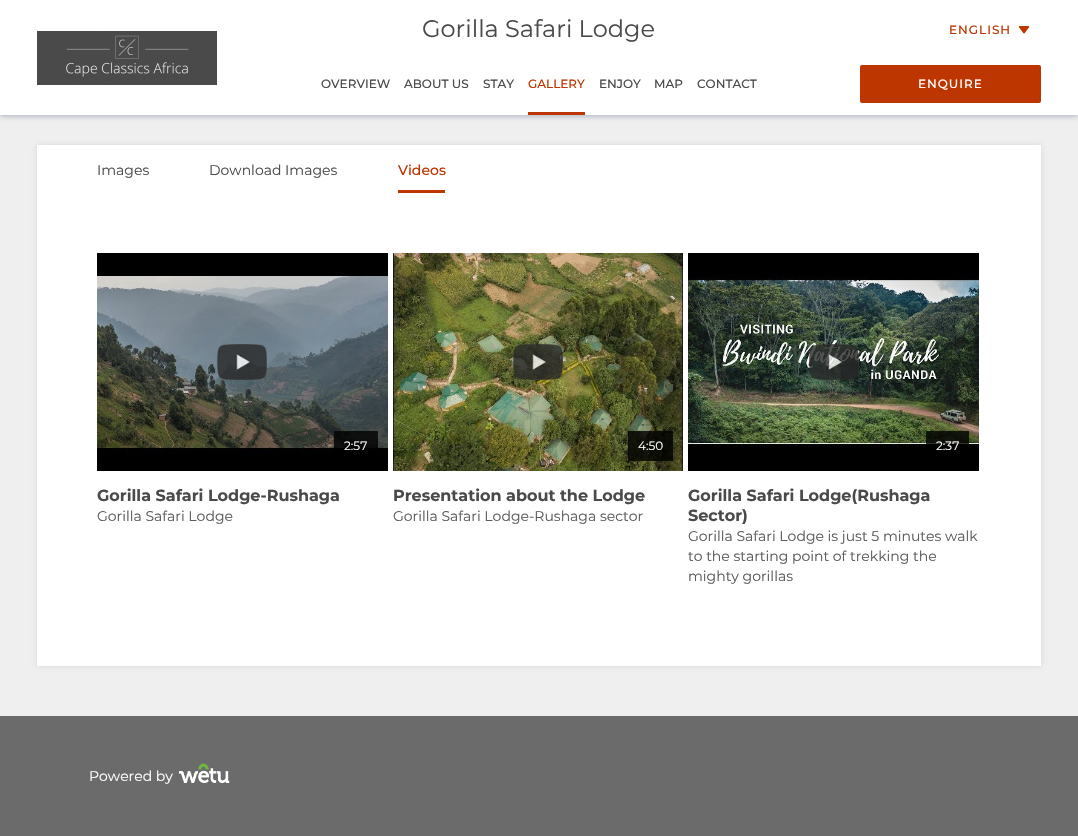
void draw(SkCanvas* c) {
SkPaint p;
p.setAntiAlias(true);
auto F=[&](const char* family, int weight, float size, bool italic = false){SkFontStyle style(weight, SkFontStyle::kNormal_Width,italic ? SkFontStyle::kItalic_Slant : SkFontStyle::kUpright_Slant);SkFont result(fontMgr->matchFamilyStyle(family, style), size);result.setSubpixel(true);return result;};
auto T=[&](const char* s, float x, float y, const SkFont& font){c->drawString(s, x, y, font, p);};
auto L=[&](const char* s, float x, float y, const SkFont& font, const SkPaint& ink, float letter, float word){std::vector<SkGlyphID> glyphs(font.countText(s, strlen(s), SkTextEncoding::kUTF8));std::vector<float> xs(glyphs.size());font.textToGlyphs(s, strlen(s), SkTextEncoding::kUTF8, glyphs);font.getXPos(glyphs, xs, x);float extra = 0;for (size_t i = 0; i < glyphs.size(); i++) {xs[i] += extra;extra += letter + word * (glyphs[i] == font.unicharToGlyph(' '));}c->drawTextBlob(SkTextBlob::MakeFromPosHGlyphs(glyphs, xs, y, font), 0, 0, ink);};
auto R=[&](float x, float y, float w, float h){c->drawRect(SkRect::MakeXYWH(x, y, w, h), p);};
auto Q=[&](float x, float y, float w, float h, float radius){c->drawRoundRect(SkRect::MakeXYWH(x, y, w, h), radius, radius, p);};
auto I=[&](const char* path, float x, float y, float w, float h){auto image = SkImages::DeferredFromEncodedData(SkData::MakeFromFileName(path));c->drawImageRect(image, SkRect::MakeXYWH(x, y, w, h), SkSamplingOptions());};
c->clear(0xffefefef);
p.setColor(0x807f8ea0);
p.setMaskFilter(SkMaskFilter::MakeBlur(kNormal_SkBlurStyle, 2.5));
c->drawRect(SkRect::MakeXYWH(0,2,1078,115),p);
p.setMaskFilter(nullptr);
p.setColor(0xffffffff);
R(0,0,1078,115);
I("1.png",37,31,180,54);
auto f1 = F("Montserrat",400,24);
p.setColor(0xff4a4a4a);
T("Gorilla Safari Lodge",422,37,f1);
auto f2 = F("Montserrat",500,12);
T("OVERVIEW",321,88,f2);
T("ABOUT US",404,88,f2);
T("STAY",483,88,f2);
p.setColor(0xffbd3600);
T("GALLERY",528,88,f2);
R(528,112,57,3);
p.setColor(0xff4a4a4a);
T("ENJOY",599,88,f2);
T("MAP",654,88,f2);
T("CONTACT",697,88,f2);
p.setColor(0xffbd3600);
L("ENGLISH",949,34,f2,p,1,0);
I("2.png",1018,26,12,8);
Q(860,65,181,38,2);
p.setColor(0xffffffff);
L("ENQUIRE",918,88,f2,p,1,0);
p.setColor(0x1a000000);
p.setMaskFilter(SkMaskFilter::MakeBlur(kNormal_SkBlurStyle, 2.5));
c->drawRect(SkRect::MakeXYWH(37,145,1004,521),p);
p.setMaskFilter(nullptr);
p.setColor(0xffffffff);
R(37,145,1004,521);
auto f3 = F("Montserrat",400,14);
p.setColor(0xff4a4a4a);
T("Images",97,175,f3);
T("Download Images",209,175,f3);
auto f4 = F("Montserrat",500,14);
p.setColor(0xffbd3600);
T("Videos",398,175,f4);
R(398,190,47,3);
p.setColor(0xff000000);
R(97,253,291,218);
I("3.png",97,275,291,181);
I("4.png",217,344,50,36);
p.setColor(0xcc000000);
R(334,431,44,25);
auto f5 = F("Montserrat",400,12);
p.setColor(0xffffffff);
T("2:57",344,450,f5);
auto f6 = F("Montserrat",700,16);
p.setColor(0xff4a4a4a);
T("Gorilla Safari Lodge-Rushaga",97,501,f6);
p.setColor(0xff5a5a5a);
T("Gorilla Safari Lodge",97,521,f3);
I("5.png",393,253,290,218);
I("6.png",513,344,50,36);
p.setColor(0xcc000000);
R(628,431,45,30);
p.setColor(0xffffffff);
T("4:50",638,450,f5);
p.setColor(0xff4a4a4a);
T("Presentation about the Lodge",393,501,f6);
p.setColor(0xff5a5a5a);
T("Gorilla Safari Lodge-Rushaga sector",393,521,f3);
p.setColor(0xff000000);
R(688,253,291,218);
I("7.png",688,273,291,174);
I("8.png",809,344,50,36);
p.setColor(0xcc000000);
R(926,431,43,16);
p.setColor(0xffffffff);
T("2:37",936,450,f5);
p.setColor(0xff4a4a4a);
T("Gorilla Safari Lodge(Rushaga",688,501,f6);
T("Sector)",688,521,f6);
p.setColor(0xff5a5a5a);
T("Gorilla Safari Lodge is just 5 minutes walk",688,541,f3);
T("to the starting point of trekking the",688,561,f3);
T("mighty gorillas",688,581,f3);
p.setColor(0xff6b6b6b);
R(0,716,1078,120);
p.setColor(0xffffffff);
T("Powered by",89,781,f3);
I("9.png",178,763,52,20);
}
